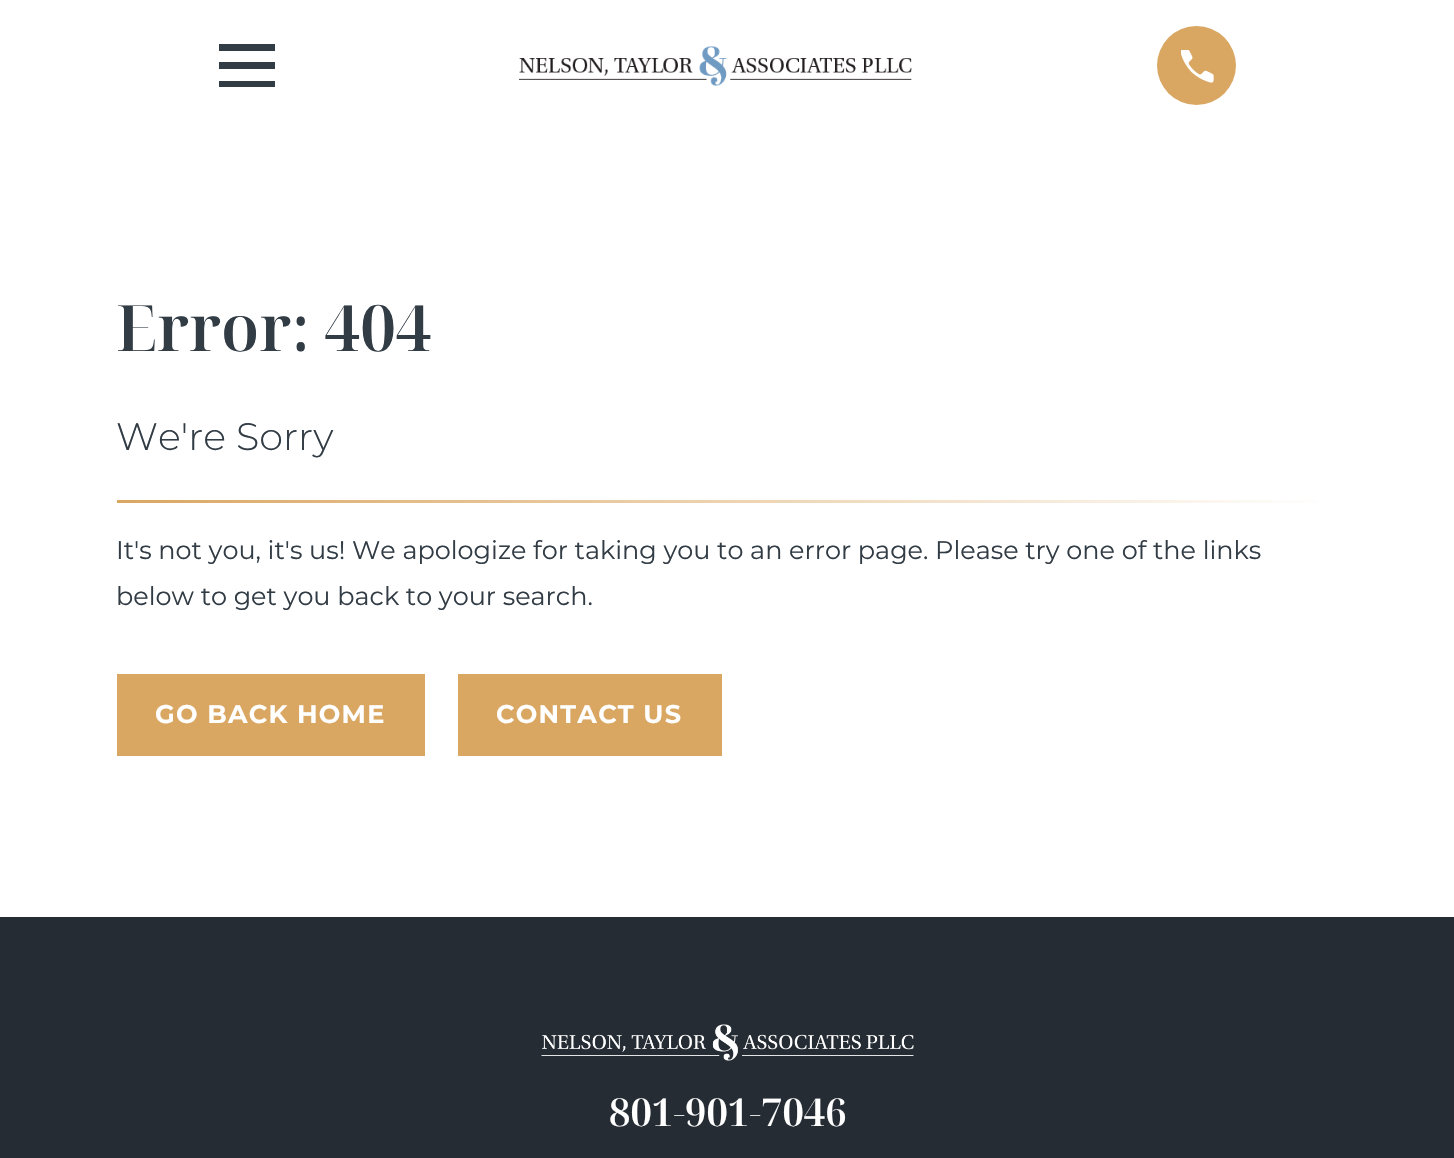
void draw(SkCanvas* c) {
SkPaint p;
p.setAntiAlias(true);
auto F=[&](const char* family, int weight, float size, bool italic = false){SkFontStyle style(weight, SkFontStyle::kNormal_Width,italic ? SkFontStyle::kItalic_Slant : SkFontStyle::kUpright_Slant);SkFont result(fontMgr->matchFamilyStyle(family, style), size);result.setSubpixel(true);return result;};
auto T=[&](const char* s, float x, float y, const SkFont& font){c->drawString(s, x, y, font, p);};
auto L=[&](const char* s, float x, float y, const SkFont& font, const SkPaint& ink, float letter, float word){std::vector<SkGlyphID> glyphs(font.countText(s, strlen(s), SkTextEncoding::kUTF8));std::vector<float> xs(glyphs.size());font.textToGlyphs(s, strlen(s), SkTextEncoding::kUTF8, glyphs);font.getXPos(glyphs, xs, x);float extra = 0;for (size_t i = 0; i < glyphs.size(); i++) {xs[i] += extra;extra += letter + word * (glyphs[i] == font.unicharToGlyph(' '));}c->drawTextBlob(SkTextBlob::MakeFromPosHGlyphs(glyphs, xs, y, font), 0, 0, ink);};
auto R=[&](float x, float y, float w, float h){c->drawRect(SkRect::MakeXYWH(x, y, w, h), p);};
auto I=[&](const char* path, float x, float y, float w, float h){auto image = SkImages::DeferredFromEncodedData(SkData::MakeFromFileName(path));c->drawImageRect(image, SkRect::MakeXYWH(x, y, w, h), SkSamplingOptions());};
auto P=[&](const char* data, bool evenOdd = false){SkPath result = *SkParsePath::FromSVGString(data);if (evenOdd) result.setFillType(SkPathFillType::kEvenOdd);return result;};
c->clear(0xffffffff);
p.setColor(0xff323c45);
c->drawPath(P("M219 44v7h56v-7zm0 18v7h56v-7zm0 19v6h56v-6z"),p);
I("1.png",519,46,393,40);
p.setColor(0xffdaa763);
c->drawCircle(1196.5,65.5,39.5,p);
I("2.png",1181,50,33,33);
auto f1 = F("Noto Serif Display",600,63.75);
p.setColor(0xff323c45);
T("Error: 404",116,351,f1);
auto f2 = F("Montserrat",300,38.25);
T("We're Sorry",116,450,f2);
{
const SkColor colors[] = {0xffdaa763,0xffffffff};
const float stops[] = {0,1};
const SkPoint ends[] = {{117,501}, {1338,501}};
p.setShader(SkGradientShader::MakeLinear(ends, colors, stops, 2, SkTileMode::kClamp));
p.setAlpha(255);
}
R(117,500,1201,3);
auto f3 = F("Montserrat",400,25.5);
p.setShader(nullptr);
p.setColor(0xff323c45);
T("It's not you, it's us! We apologize for taking you to an error page. Please try one of the links",116,559,f3);
T("below to get you back to your search.",116,605,f3);
p.setColor(0xffdaa763);
R(117,674,308,82);
auto f4 = F("Montserrat",700,25.5);
p.setColor(0xffffffff);
L("GO BACK HOME",155,723,f4,p,1.25,0);
p.setColor(0xffdaa763);
R(458,674,264,82);
p.setColor(0xffffffff);
L("CONTACT US",496,723,f4,p,1.25,0);
p.setColor(0xff252c33);
R(0,917,1454,241);
I("3.png",541,1024,373,37);
auto f5 = F("Noto Serif Display",600,38.25);
p.setColor(0xffffffff);
T("801-901-7046",609,1126,f5);
}
